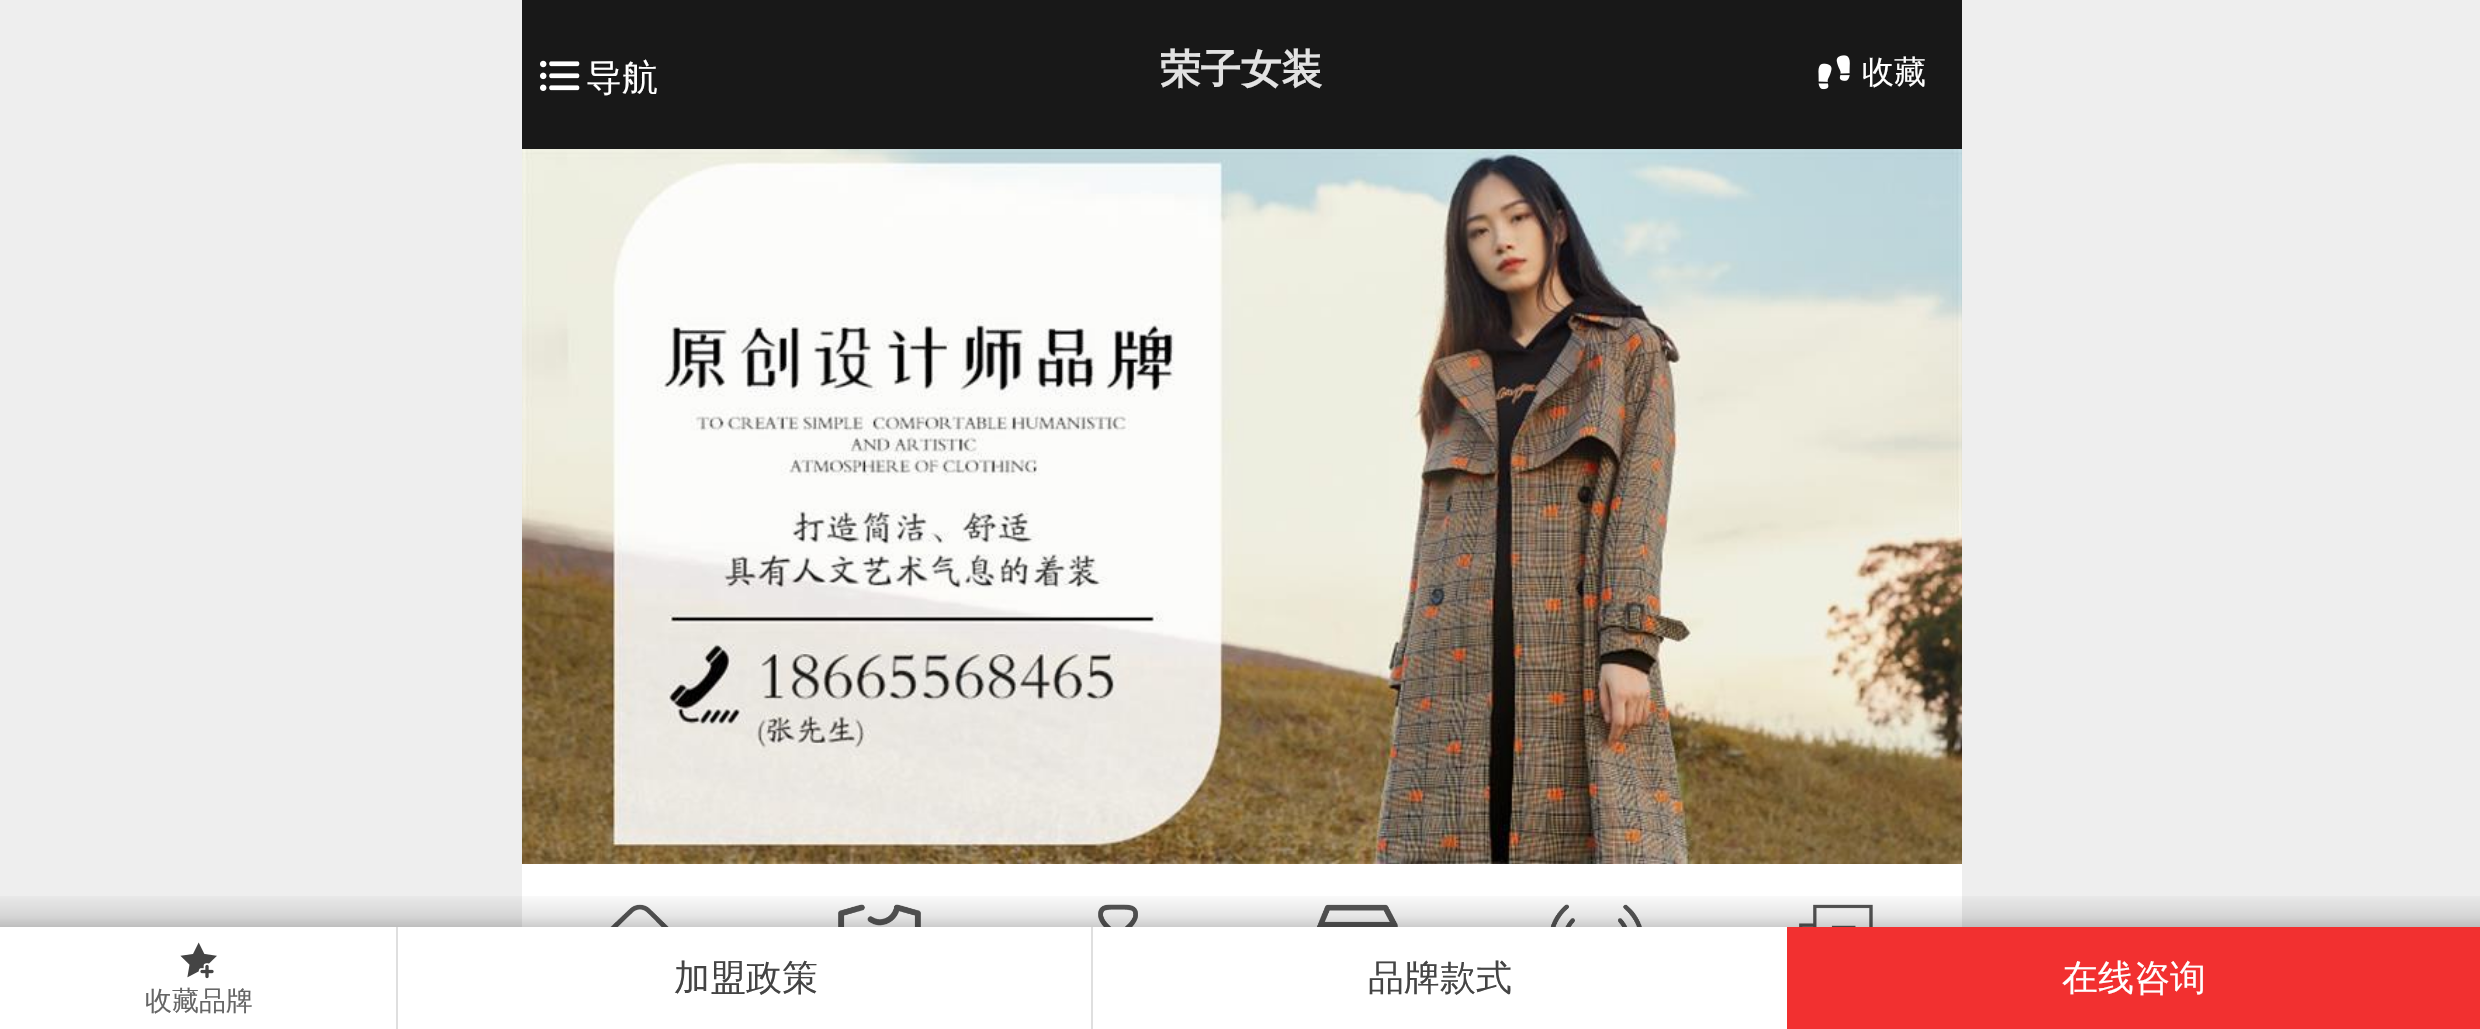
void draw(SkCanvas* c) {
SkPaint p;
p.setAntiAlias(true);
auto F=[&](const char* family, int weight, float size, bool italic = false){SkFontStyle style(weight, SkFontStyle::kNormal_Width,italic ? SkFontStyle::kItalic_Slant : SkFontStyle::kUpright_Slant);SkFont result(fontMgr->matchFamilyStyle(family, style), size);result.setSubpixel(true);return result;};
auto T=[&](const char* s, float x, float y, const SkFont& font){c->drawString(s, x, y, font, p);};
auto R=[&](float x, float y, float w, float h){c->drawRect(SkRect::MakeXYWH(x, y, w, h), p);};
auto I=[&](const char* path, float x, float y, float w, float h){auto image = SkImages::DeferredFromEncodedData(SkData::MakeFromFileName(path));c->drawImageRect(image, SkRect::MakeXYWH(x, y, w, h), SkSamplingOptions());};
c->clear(0xffeeeeee);
p.setColor(0xffffffff);
R(522,864,1440,63);
p.setColor(0xff181818);
R(522,0,1440,149);
I("1.png",540,60,40,31);
auto f1 = F("WenQuanYi Zen Hei",500,36);
p.setColor(0xffffffff);
T("导航",586,90,f1);
c->save();
c->clipRect(SkRect::MakeXYWH(1161,0,162,149));
auto f2 = F("WenQuanYi Zen Hei",700,40.5);
p.setColor(0xffe2e2e2);
T("荣子女装",1160,83,f2);
c->restore();
I("2.png",1818,55,32,35);
auto f3 = F("WenQuanYi Zen Hei",500,32);
p.setColor(0xffffffff);
T("收藏",1862,83,f3);
I("3.png",522,149,1440,715);
I("4.png",610,904,59,23);
I("5.png",838,904,83,23);
I("6.png",1098,904,40,23);
I("7.png",1317,904,81,23);
I("8.png",1550,904,92,23);
I("9.png",1799,904,74,23);
{
const SkColor colors[] = {0x00000000,0x1a000000,0x33000000};
const float stops[] = {0,.7,1};
const SkPoint ends[] = {{1241,891}, {1241,927}};
p.setShader(SkGradientShader::MakeLinear(ends, colors, stops, 3, SkTileMode::kClamp));
p.setAlpha(255);
}
R(0,896,2480,31);
p.setShader(nullptr);
p.setColor(0xffffffff);
R(398,927,693,102);
p.setColor(0xffdfdfdf);
R(396,927,2,102);
p.setColor(0xff444444);
T("加盟政策",674,990,f1);
p.setColor(0xffffffff);
R(1093,927,694,102);
p.setColor(0xffdfdfdf);
R(1091,927,2,102);
p.setColor(0xff444444);
T("品牌款式",1368,990,f1);
p.setColor(0xfff23030);
R(1787,927,693,102);
p.setColor(0xffffffff);
T("在线咨询",2062,990,f1);
R(0,927,396,102);
I("10.png",180,942,37,37);
auto f4 = F("WenQuanYi Zen Hei",500,27);
p.setColor(0xff666666);
T("收藏品牌",145,1010,f4);
}
